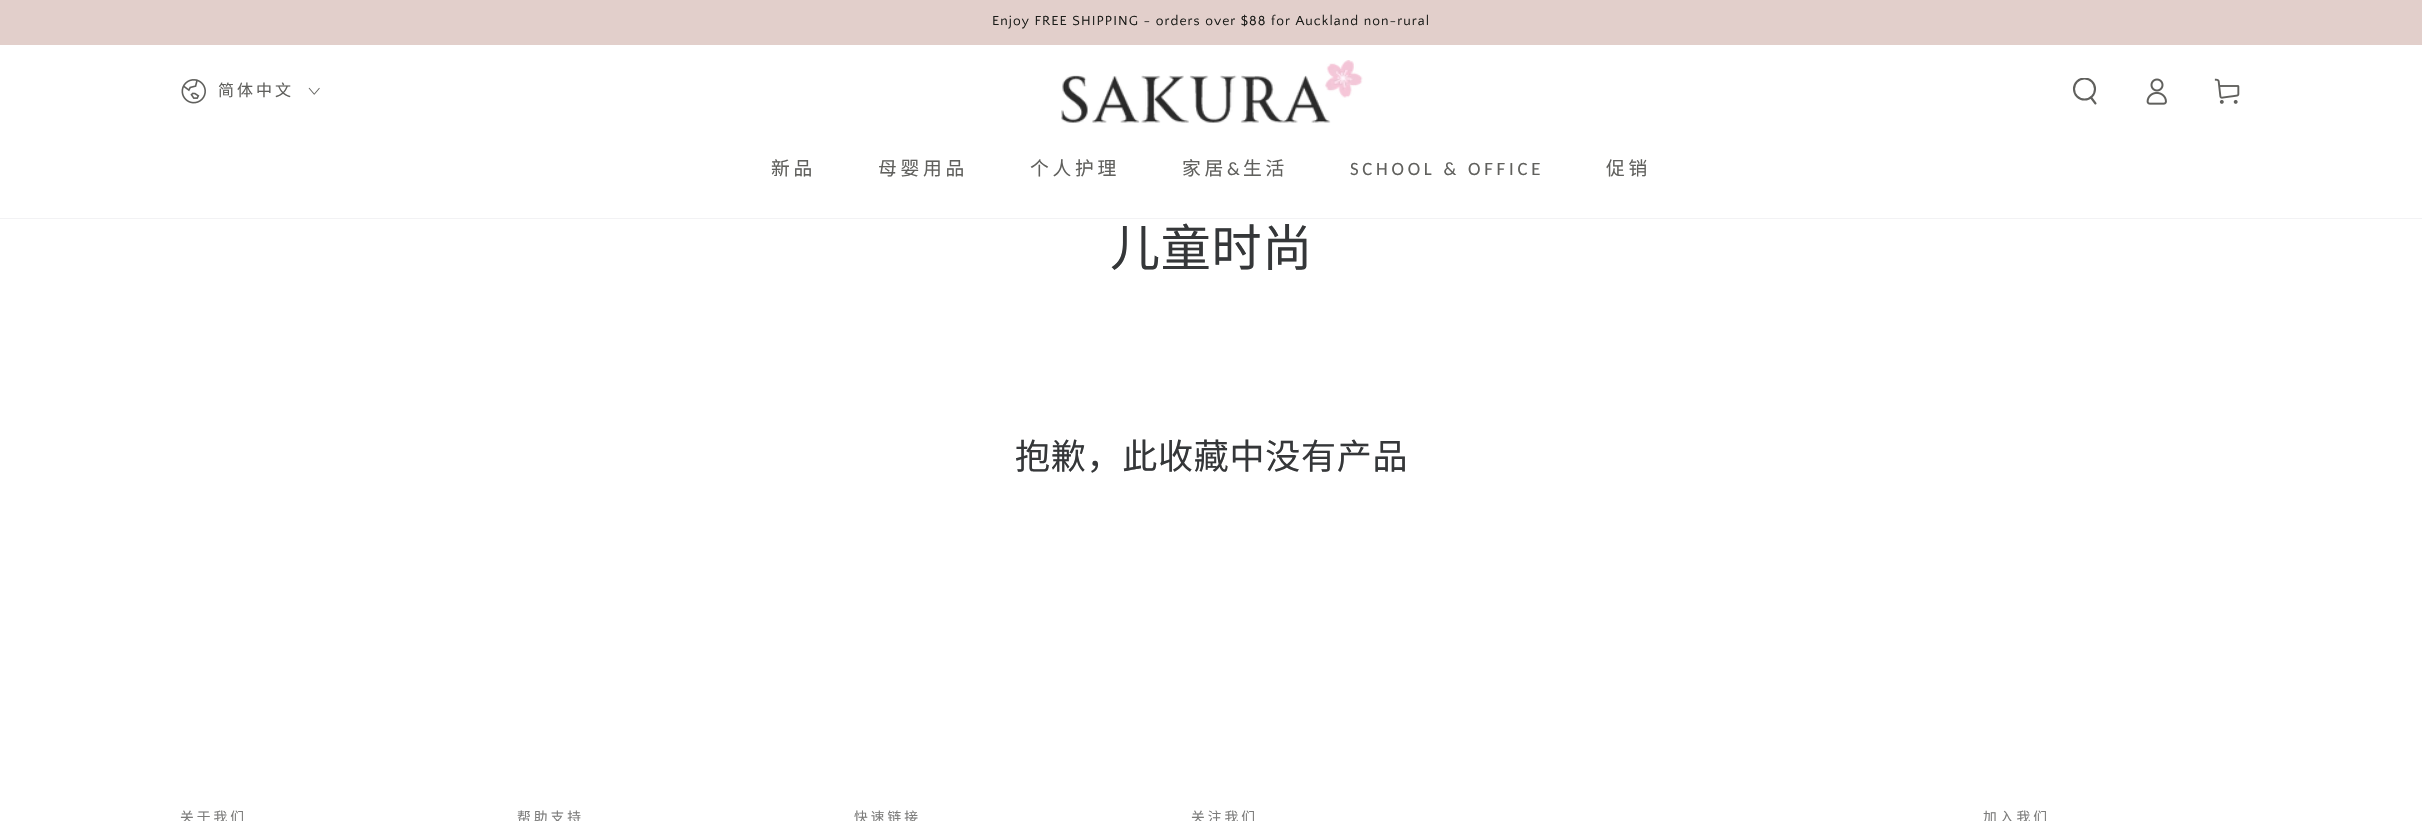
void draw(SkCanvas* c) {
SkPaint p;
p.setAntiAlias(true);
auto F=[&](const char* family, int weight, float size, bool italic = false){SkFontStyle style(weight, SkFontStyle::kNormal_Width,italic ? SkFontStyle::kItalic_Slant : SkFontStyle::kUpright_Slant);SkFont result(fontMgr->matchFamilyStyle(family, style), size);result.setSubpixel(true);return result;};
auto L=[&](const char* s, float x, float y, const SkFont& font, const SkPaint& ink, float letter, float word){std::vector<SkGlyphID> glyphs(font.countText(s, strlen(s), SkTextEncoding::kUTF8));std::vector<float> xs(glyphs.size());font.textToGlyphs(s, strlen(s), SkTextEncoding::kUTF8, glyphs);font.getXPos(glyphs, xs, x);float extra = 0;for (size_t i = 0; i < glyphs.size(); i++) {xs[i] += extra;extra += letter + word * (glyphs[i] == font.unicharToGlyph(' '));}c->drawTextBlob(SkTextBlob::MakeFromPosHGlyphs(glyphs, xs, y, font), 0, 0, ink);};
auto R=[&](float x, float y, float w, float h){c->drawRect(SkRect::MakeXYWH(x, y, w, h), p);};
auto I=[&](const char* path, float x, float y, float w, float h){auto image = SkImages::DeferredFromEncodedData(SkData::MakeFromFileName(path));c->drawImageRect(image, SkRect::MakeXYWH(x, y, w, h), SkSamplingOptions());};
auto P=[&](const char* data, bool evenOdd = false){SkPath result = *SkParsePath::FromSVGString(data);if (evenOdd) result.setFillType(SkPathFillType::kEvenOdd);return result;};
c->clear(0xffffffff);
p.setColor(0xffe2cfcb);
R(0,0,2422,45);
auto f1 = F("Quattrocento Sans",400,13.75);
p.setColor(0xff1a1b18);
L("Enjoy FREE SHIPPING - orders over $88 for Auckland non-rural",992,25,f1,p,1.07,0);
p.setColor(0xfff2f2f4);
c->drawPath(P("M0 218v1h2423v-173h-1v172z"),p);
I("1.png",181,79,25,25);
auto f2 = F("Noto Sans CJK SC",400,16);
p.setColor(0xff60605d);
L("简体中文",218,96,f2,p,3,0);
I("2.png",308,87,12,8);
I("3.png",1061,60,302,63);
c->save();
c->clipRect(SkRect::MakeXYWH(2071,78,28,27));
p.setStroke(true);
p.setStrokeWidth(2.1);
c->drawCircle(2084.5,89,10.5,p);
c->restore();
p.setStrokeCap(SkPaint::kRound_Cap);
c->drawPath(P("M2091 97.5l4.5 6"),p);
I("4.png",2146,78,21,27);
I("5.png",2214,78,26,26);
auto f3 = F("Noto Sans CJK SC",400,18.75);
p.setStroke(false);
L("新品",771,175,f3,p,3.75,0);
L("母婴用品",878,175,f3,p,3.75,0);
L("个人护理",1030,175,f3,p,3.75,0);
L("家居",1182,175,f3,p,3.75,0);
auto f4 = F("Carlito",400,18.75);
L("&",1227,175,f4,p,3.75,0);
L("生活",1243,175,f3,p,3.75,0);
L("SCHOOL & OFFICE",1350,175,f4,p,3.75,0);
L("促销",1606,175,f3,p,3.75,0);
auto f5 = F("Noto Sans CJK SC",400,50);
p.setColor(0xff353739);
L("儿童时尚",1110,266,f5,p,.75,0);
auto f6 = F("Noto Sans CJK SC",400,35);
L("抱歉，此收藏中没有产品",1015,469,f6,p,.75,0);
auto f7 = F("Noto Sans CJK SC",400,13.75);
p.setColor(0xff7c7c7b);
L("关于我们",180,822,f7,p,3,0);
L("帮助支持",517,822,f7,p,3,0);
L("快速链接",854,822,f7,p,3,0);
L("关注我们",1191,822,f7,p,3,0);
L("加入我们",1983,822,f7,p,3,0);
}
